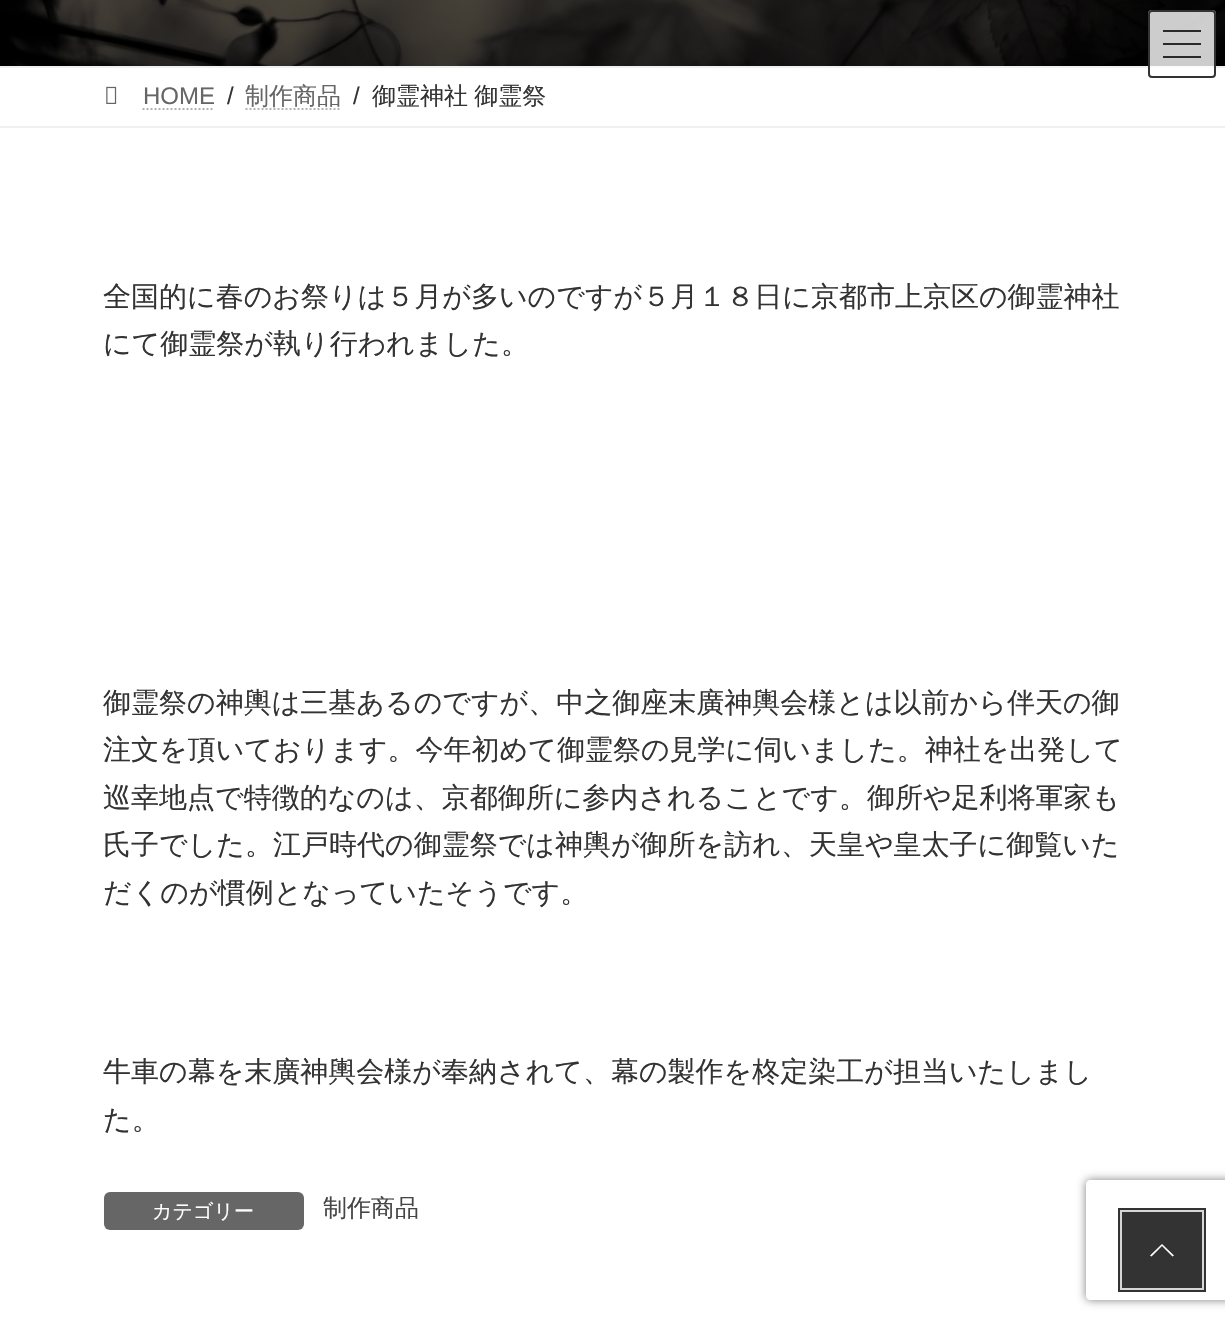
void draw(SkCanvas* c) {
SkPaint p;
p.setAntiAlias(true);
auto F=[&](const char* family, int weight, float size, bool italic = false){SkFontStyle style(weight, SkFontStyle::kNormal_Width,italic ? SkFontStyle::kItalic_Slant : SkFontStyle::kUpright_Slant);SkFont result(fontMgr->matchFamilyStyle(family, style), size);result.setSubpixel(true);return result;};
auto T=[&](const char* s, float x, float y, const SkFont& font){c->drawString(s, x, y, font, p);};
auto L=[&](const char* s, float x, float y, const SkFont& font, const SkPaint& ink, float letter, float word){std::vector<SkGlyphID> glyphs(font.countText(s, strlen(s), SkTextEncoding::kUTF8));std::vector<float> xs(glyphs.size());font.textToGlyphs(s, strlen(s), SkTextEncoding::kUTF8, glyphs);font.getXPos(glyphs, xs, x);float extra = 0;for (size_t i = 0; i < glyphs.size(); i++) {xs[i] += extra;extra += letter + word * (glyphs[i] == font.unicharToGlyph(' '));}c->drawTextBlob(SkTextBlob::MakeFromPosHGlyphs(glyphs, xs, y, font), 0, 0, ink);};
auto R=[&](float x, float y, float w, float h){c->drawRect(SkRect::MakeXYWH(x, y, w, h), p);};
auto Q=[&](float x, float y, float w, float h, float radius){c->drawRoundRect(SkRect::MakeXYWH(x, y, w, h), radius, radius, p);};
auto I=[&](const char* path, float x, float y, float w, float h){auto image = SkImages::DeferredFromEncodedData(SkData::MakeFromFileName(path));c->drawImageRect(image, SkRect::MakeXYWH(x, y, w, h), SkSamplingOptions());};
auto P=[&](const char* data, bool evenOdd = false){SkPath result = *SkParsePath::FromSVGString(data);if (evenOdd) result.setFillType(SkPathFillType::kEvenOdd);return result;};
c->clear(0xffffffff);
I("1.png",0,0,1225,66);
p.setColor(0xfff0f0f0);
R(0,66,1225,2);
p.setColor(0xccffffff);
Q(1148,10,68,68,4);
p.setColor(0xff292929);
R(1163,30,38,2);
R(1163,43,38,2);
R(1163,56,38,2);
p.setStroke(true);
p.setStrokeWidth(2);
p.setColor(0xff333333);
c->drawRoundRect(SkRect::MakeXYWH(1149,11,66,66),3,3,p);
p.setStroke(false);
p.setColor(0xfff0f0f0);
R(0,126,1225,2);
I("2.png",106,86,11,18);
auto f1 = F("Liberation Sans",400,24);
p.setColor(0xff666666);
T("HOME",143,104,f1);
p.setStroke(true);
p.setColor(0xffb3b3b3);
p.setPathEffect(SkDashPathEffect::Make({{2,2}}, 0));
c->drawPath(P("M142.5 109h72"),p);
p.setPathEffect(nullptr);
p.setStroke(false);
p.setColor(0xff333333);
T("/",227,104,f1);
auto f2 = F("WenQuanYi Zen Hei",500,24);
p.setColor(0xff666666);
T("制作商品",245,104,f2);
p.setStroke(true);
p.setColor(0xffb3b3b3);
p.setPathEffect(SkDashPathEffect::Make({{2,2}}, 0));
c->drawPath(P("M245.5 109h96"),p);
p.setPathEffect(nullptr);
p.setStroke(false);
p.setColor(0xff333333);
T("/",353,104,f1);
L("御霊神社 御霊祭",372,104,f2,p,0,-1);
auto f3 = F("WenQuanYi Zen Hei",500,28);
T("全国的に春のお祭りは５月が多いのですが５月１８日に京都市上京区の御霊神社",103,306,f3);
T("にて御霊祭が執り行われました。",103,353,f3);
T("御霊祭の神輿は三基あるのですが、中之御座末廣神輿会様とは以前から伴天の御",103,712,f3);
T("注文を頂いております。今年初めて御霊祭の見学に伺いました。神社を出発して",103,759,f3);
T("巡幸地点で特徴的なのは、京都御所に参内されることです。御所や足利将軍家も",103,807,f3);
T("氏子でした。江戸時代の御霊祭では神輿が御所を訪れ、天皇や皇太子に御覧いた",103,854,f3);
T("だくのが慣例となっていたそうです。",103,902,f3);
T("牛車の幕を末廣神輿会様が奉納されて、幕の製作を柊定染工が担当いたしまし",103,1081,f3);
T("た。",103,1129,f3);
p.setColor(0xff666666);
Q(104,1192,200,38,6);
auto f4 = F("WenQuanYi Zen Hei",500,20);
p.setColor(0xffffffff);
T("カテゴリー",152,1218,f4);
p.setColor(0xff464646);
T("制作商品",323,1216,f2);
c->save();
c->clipPath(P("M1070 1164h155v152h-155zm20 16h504c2 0 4 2 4 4v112c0 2-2 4-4 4h-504c-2 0-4-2-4-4v-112c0-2 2-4 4-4z",true),true);
p.setColor(0xff808080);
p.setMaskFilter(SkMaskFilter::MakeBlur(kNormal_SkBlurStyle, 5));
c->drawRoundRect(SkRect::MakeXYWH(1086,1180,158,120),4,4,p);
p.setMaskFilter(nullptr);
c->restore();
p.setStroke(true);
p.setStrokeWidth(4);
p.setColor(0xff333333);
c->drawRect(SkRect::MakeXYWH(1120,1210,84,80),p);
p.setStrokeWidth(2);
p.setColor(0xffd6d6d6);
c->drawRect(SkRect::MakeXYWH(1121,1211,82,78),p);
p.setStroke(false);
p.setColor(0xff333333);
R(1122,1212,80,76);
p.setColor(0xffffffff);
c->drawPath(P("M1174 1255.5l-1.5 1l-10.5-10.5l-10.5 10.5l-1.5-1l12-11.5z"),p);
}
